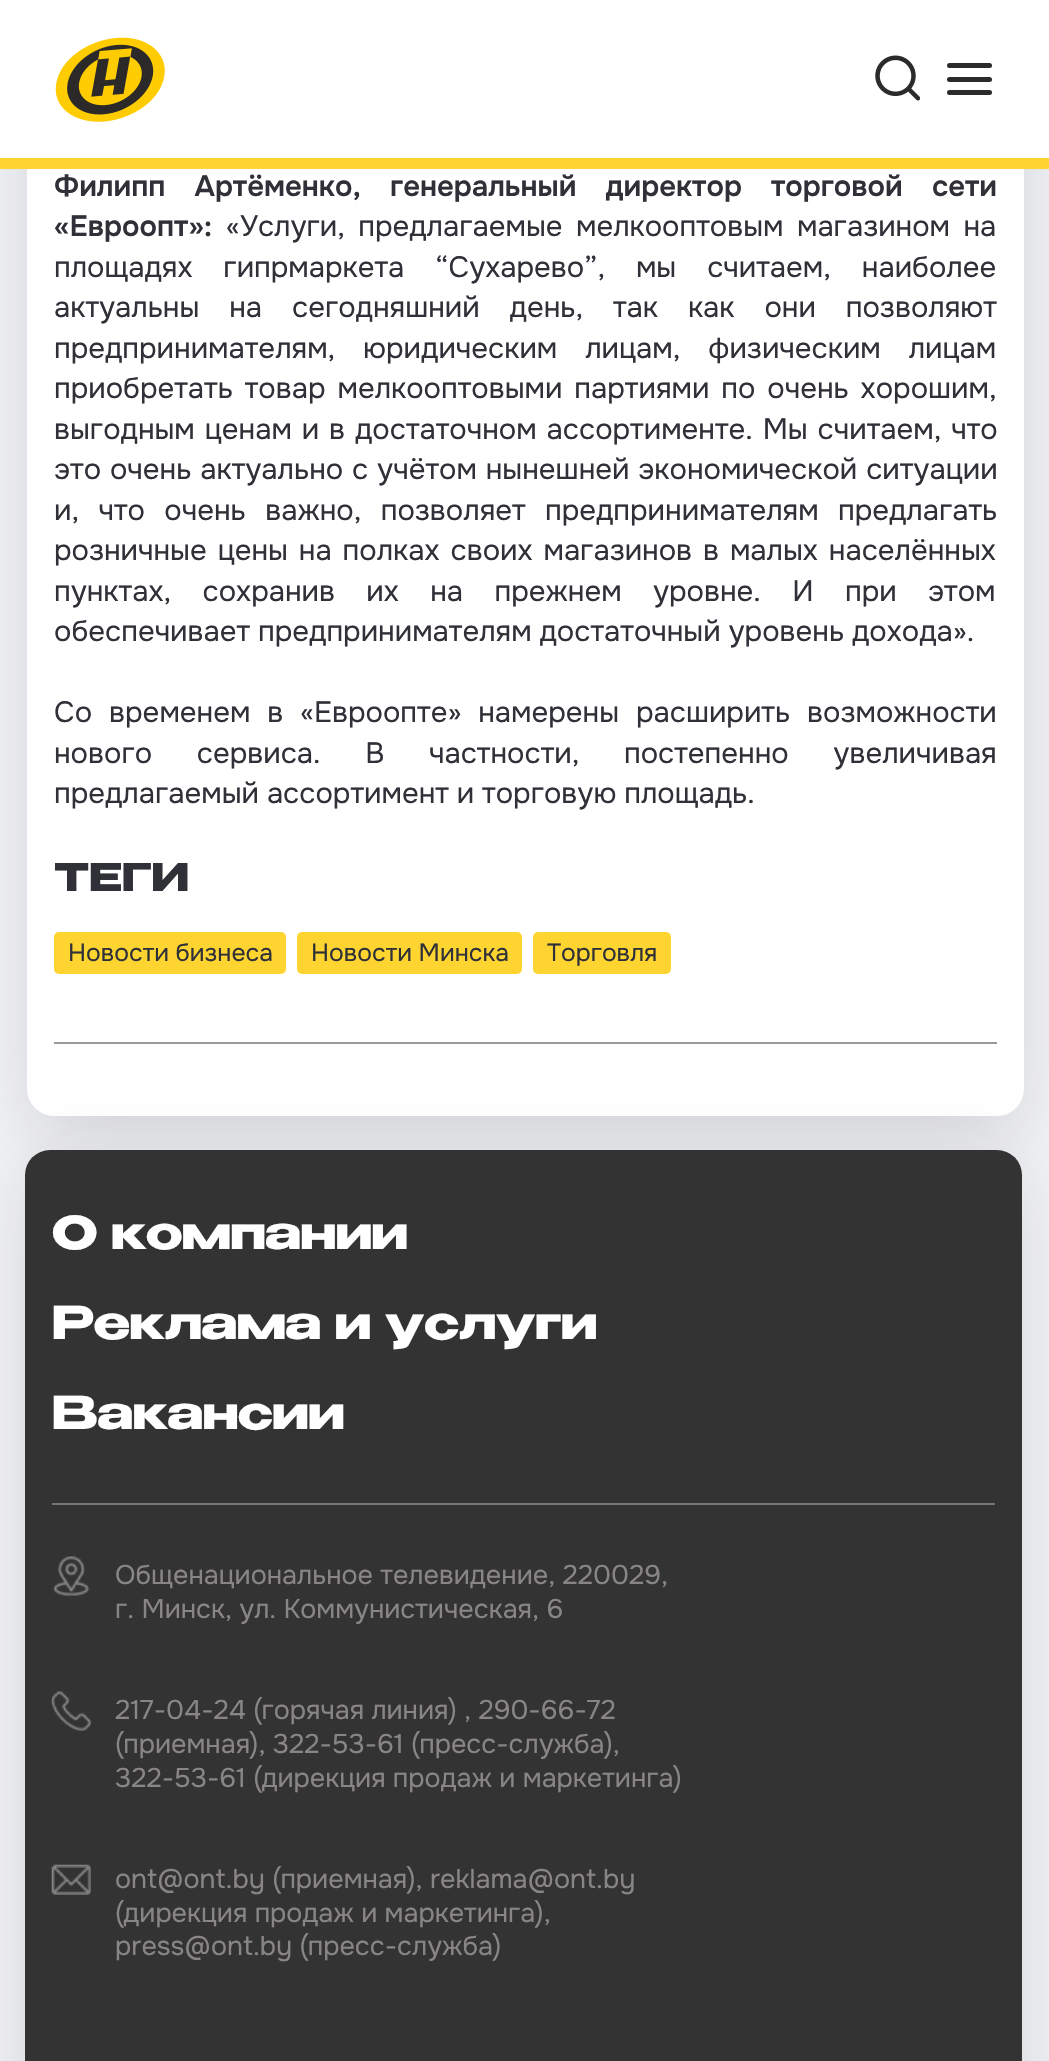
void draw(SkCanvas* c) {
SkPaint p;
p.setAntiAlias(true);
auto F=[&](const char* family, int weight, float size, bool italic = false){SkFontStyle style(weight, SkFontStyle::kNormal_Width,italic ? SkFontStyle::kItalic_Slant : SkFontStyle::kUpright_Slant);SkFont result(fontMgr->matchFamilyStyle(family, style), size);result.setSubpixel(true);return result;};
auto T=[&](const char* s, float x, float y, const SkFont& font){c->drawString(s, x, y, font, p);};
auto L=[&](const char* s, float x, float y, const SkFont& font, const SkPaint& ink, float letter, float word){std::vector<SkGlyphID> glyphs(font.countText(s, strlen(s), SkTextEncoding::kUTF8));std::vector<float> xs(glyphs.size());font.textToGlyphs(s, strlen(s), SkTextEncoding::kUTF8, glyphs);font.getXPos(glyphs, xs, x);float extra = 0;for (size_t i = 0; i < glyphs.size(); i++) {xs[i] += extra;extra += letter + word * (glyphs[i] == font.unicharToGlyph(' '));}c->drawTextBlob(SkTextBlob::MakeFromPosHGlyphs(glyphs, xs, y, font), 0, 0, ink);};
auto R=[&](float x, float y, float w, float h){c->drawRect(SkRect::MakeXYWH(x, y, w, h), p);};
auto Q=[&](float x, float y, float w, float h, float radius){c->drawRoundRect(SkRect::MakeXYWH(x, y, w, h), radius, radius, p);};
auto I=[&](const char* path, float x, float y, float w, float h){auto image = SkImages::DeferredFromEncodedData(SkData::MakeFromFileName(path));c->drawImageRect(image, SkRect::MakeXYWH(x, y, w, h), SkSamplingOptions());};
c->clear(0xfff2f3f7);
p.setColor(0x24000000);
p.setMaskFilter(SkMaskFilter::MakeBlur(kNormal_SkBlurStyle, 36));
c->drawRoundRect(SkRect::MakeXYWH(32,-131,987,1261),23,23,p);
p.setMaskFilter(nullptr);
p.setColor(0xffffffff);
Q(27,-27,997,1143,27);
R(0,0,1049,158);
p.setColor(0xfffed530);
R(0,158,1049,11);
I("1.png",55,37,110,85);
I("2.png",875,55,45,46);
p.setColor(0xff2b2b2b);
Q(947,63,45,5,2.5);
Q(947,77,45,5,2.5);
Q(947,90,45,5,2.5);
auto f1 = F("Onest",600,29.25);
p.setColor(0xff303138);
L("Филипп Артёменко, генеральный директор торговой сети",54,196,f1,p,0,21);
T("«Евроопт»:",54,236,f1);
auto f2 = F("Onest",400,29.25);
L("«Услуги, предлагаемые мелкооптовым магазином на",226,236,f2,p,0,5.5);
L("площадях гипрмаркета “Сухарево”, мы считаем, наиболее",54,277,f2,p,0,23);
L("актуальны на сегодняшний день, так как они позволяют",54,317,f2,p,0,22);
L("предпринимателям, юридическим лицам, физическим лицам",54,358,f2,p,0,20);
L("приобретать товар мелкооптовыми партиями по очень хорошим,",54,398,f2,p,0,4);
L("выгодным ценам и в достаточном ассортименте. Мы считаем, что",54,439,f2,p,0,2);
L("это очень актуально с учётом нынешней экономической ситуации",54,479,f2,p,0,1);
L("и, что очень важно, позволяет предпринимателям предлагать",54,520,f2,p,0,11.5);
L("розничные цены на полках своих магазинов в малых населённых",54,560,f2,p,0,3);
L("пунктах, сохранив их на прежнем уровне. И при этом",54,601,f2,p,0,23.5);
T("обеспечивает предпринимателям достаточный уровень дохода».",54,641,f2);
L("Со временем в «Евроопте» намерены расширить возможности",54,722,f2,p,0,9);
L("нового сервиса. В частности, постепенно увеличивая",54,763,f2,p,0,36.75);
T("предлагаемый ассортимент и торговую площадь.",54,803,f2);
p.setColor(0xff9a9a9d);
R(54,1042,943,2);
auto f3 = F("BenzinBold",700,38);
p.setColor(0xff303138);
T("ТЕГИ",54,891,f3);
p.setColor(0xfffed530);
Q(54,932,232,42,5);
auto f4 = F("Onest",400,24.75);
p.setColor(0xff303138);
T("Новости бизнеса",68,961,f4);
p.setColor(0xfffed530);
Q(297,932,225,42,5);
p.setColor(0xff303138);
T("Новости Минска",311,961,f4);
p.setColor(0xfffed530);
Q(533,932,138,42,5);
p.setColor(0xff303138);
T("Торговля",547,961,f4);
p.setColor(0x24000000);
p.setMaskFilter(SkMaskFilter::MakeBlur(kNormal_SkBlurStyle, 36));
c->drawRoundRect(SkRect::MakeXYWH(29,1172,988,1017),20,20,p);
p.setMaskFilter(nullptr);
p.setColor(0xff333333);
Q(25,1150,997,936,25);
p.setColor(0xff787575);
R(52,1503,943,2);
auto f5 = F("BenzinBold",700,45);
p.setColor(0xffffffff);
T("О компании",52,1249,f5);
T("Реклама и услуги",52,1339,f5);
T("Вакансии",52,1429,f5);
I("3.png",53,1556,37,40);
auto f6 = F("Onest",400,27);
p.setColor(0xff898585);
T("Общенациональное телевидение, 220029,",115,1584,f6);
T("г. Минск, ул. Коммунистическая, 6",115,1618,f6);
I("4.png",51,1691,40,40);
T("217-04-24 (горячая линия) , 290-66-72",115,1719,f6);
T("(приемная), 322-53-61 (пресс-служба),",115,1753,f6);
T("322-53-61 (дирекция продаж и маркетинга)",115,1787,f6);
I("5.png",51,1864,40,31);
T("ont@ont.by (приемная), reklama@ont.by",115,1888,f6);
T("(дирекция продаж и маркетинга),",115,1922,f6);
T("press@ont.by (пресс-служба)",115,1955,f6);
}
